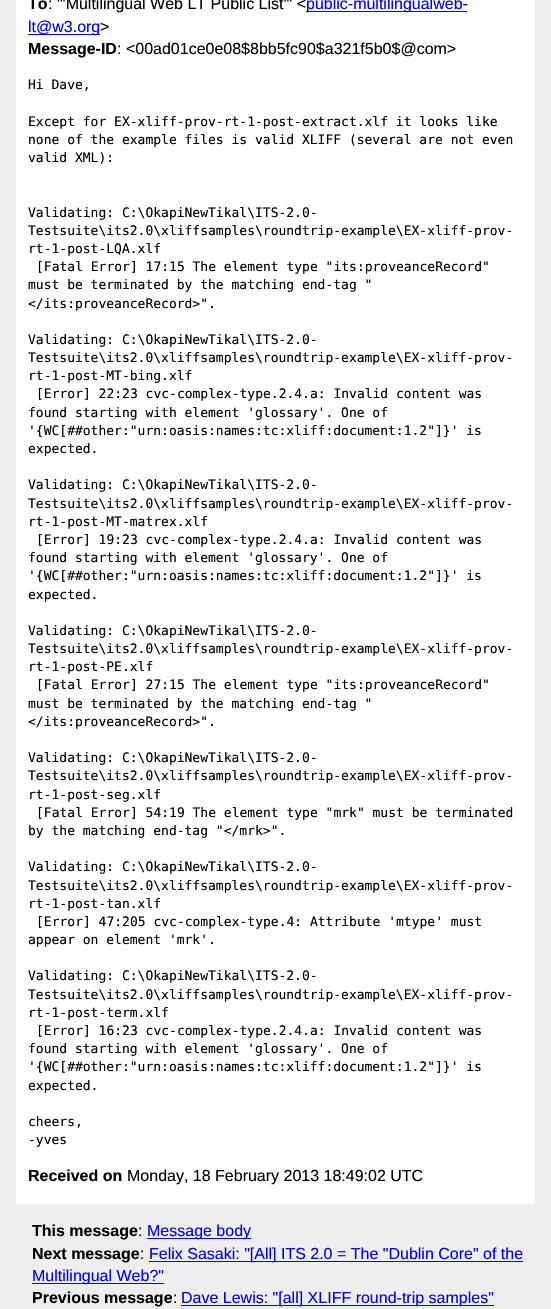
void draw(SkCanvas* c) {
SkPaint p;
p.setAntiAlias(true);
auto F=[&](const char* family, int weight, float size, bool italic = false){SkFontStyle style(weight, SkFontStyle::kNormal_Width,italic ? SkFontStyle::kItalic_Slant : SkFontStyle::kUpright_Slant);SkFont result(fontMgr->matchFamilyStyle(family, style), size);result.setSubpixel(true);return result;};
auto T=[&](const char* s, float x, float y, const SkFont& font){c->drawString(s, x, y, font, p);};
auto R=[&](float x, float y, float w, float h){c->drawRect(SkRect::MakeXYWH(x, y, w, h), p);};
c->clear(0xffeeeeee);
p.setColor(0xffffffff);
R(16,0,519,1204);
auto f1 = F("Liberation Sans",700,16);
p.setColor(0xff000000);
T("To",28,9,f1);
auto f2 = F("Liberation Sans",400,16);
T(": \"'Multilingual Web LT Public List'\" <",48,9,f2);
p.setColor(0xff0000ee);
R(306,11,161,1);
T("public-multilingualweb-",306,9,f2);
R(28,34,72,1);
T("lt@w3.org",28,32,f2);
p.setColor(0xff000000);
T(">",100,32,f2);
T("Message-ID",28,54,f1);
T(": <00ad01ce0e08$8bb5fc90$a321f5b0$@com>",117,54,f2);
auto f3 = F("DejaVu Sans Mono",400,13);
T("Hi Dave,",28,89,f3);
T("Except for EX-xliff-prov-rt-1-post-extract.xlf it looks like",28,126,f3);
T("none of the example files is valid XLIFF (several are not even",28,144,f3);
T("valid XML):",28,162,f3);
T("Validating: C:\\OkapiNewTikal\\ITS-2.0-",28,217,f3);
T("Testsuite\\its2.0\\xliffsamples\\roundtrip-example\\EX-xliff-prov-",28,235,f3);
T("rt-1-post-LQA.xlf",28,253,f3);
T("[Fatal Error] 17:15 The element type \"its:proveanceRecord\"",36,271,f3);
T("must be terminated by the matching end-tag \"",28,289,f3);
T("</its:proveanceRecord>\".",28,308,f3);
T("Validating: C:\\OkapiNewTikal\\ITS-2.0-",28,344,f3);
T("Testsuite\\its2.0\\xliffsamples\\roundtrip-example\\EX-xliff-prov-",28,362,f3);
T("rt-1-post-MT-bing.xlf",28,380,f3);
T("[Error] 22:23 cvc-complex-type.2.4.a: Invalid content was",36,398,f3);
T("found starting with element 'glossary'. One of",28,417,f3);
T("'{WC[##other:\"urn:oasis:names:tc:xliff:document:1.2\"]}' is",28,435,f3);
T("expected.",28,453,f3);
T("Validating: C:\\OkapiNewTikal\\ITS-2.0-",28,489,f3);
T("Testsuite\\its2.0\\xliffsamples\\roundtrip-example\\EX-xliff-prov-",28,508,f3);
T("rt-1-post-MT-matrex.xlf",28,526,f3);
T("[Error] 19:23 cvc-complex-type.2.4.a: Invalid content was",36,544,f3);
T("found starting with element 'glossary'. One of",28,562,f3);
T("'{WC[##other:\"urn:oasis:names:tc:xliff:document:1.2\"]}' is",28,580,f3);
T("expected.",28,599,f3);
T("Validating: C:\\OkapiNewTikal\\ITS-2.0-",28,635,f3);
T("Testsuite\\its2.0\\xliffsamples\\roundtrip-example\\EX-xliff-prov-",28,653,f3);
T("rt-1-post-PE.xlf",28,671,f3);
T("[Fatal Error] 27:15 The element type \"its:proveanceRecord\"",36,689,f3);
T("must be terminated by the matching end-tag \"",28,708,f3);
T("</its:proveanceRecord>\".",28,726,f3);
T("Validating: C:\\OkapiNewTikal\\ITS-2.0-",28,762,f3);
T("Testsuite\\its2.0\\xliffsamples\\roundtrip-example\\EX-xliff-prov-",28,780,f3);
T("rt-1-post-seg.xlf",28,799,f3);
T("[Fatal Error] 54:19 The element type \"mrk\" must be terminated",36,817,f3);
T("by the matching end-tag \"</mrk>\".",28,835,f3);
T("Validating: C:\\OkapiNewTikal\\ITS-2.0-",28,871,f3);
T("Testsuite\\its2.0\\xliffsamples\\roundtrip-example\\EX-xliff-prov-",28,890,f3);
T("rt-1-post-tan.xlf",28,908,f3);
T("[Error] 47:205 cvc-complex-type.4: Attribute 'mtype' must",36,926,f3);
T("appear on element 'mrk'.",28,944,f3);
T("Validating: C:\\OkapiNewTikal\\ITS-2.0-",28,980,f3);
T("Testsuite\\its2.0\\xliffsamples\\roundtrip-example\\EX-xliff-prov-",28,999,f3);
T("rt-1-post-term.xlf",28,1017,f3);
T("[Error] 16:23 cvc-complex-type.2.4.a: Invalid content was",36,1035,f3);
T("found starting with element 'glossary'. One of",28,1053,f3);
T("'{WC[##other:\"urn:oasis:names:tc:xliff:document:1.2\"]}' is",28,1071,f3);
T("expected.",28,1090,f3);
T("cheers,",28,1126,f3);
T("-yves",28,1144,f3);
T("Received on",28,1181,f1);
T("Monday, 18 February 2013 18:49:02 UTC",127,1181,f2);
T("This message",32,1236,f1);
T(":",138,1236,f2);
p.setColor(0xff0000ee);
R(147,1238,104,1);
T("Message body",147,1236,f2);
p.setColor(0xff000000);
T("Next message",32,1259,f1);
T(":",140,1259,f2);
p.setColor(0xff0000ee);
R(149,1261,374,1);
T("Felix Sasaki: \"[All] ITS 2.0 = The \"Dublin Core\" of the",149,1259,f2);
R(32,1283,132,1);
T("Multilingual Web?\"",32,1281,f2);
p.setColor(0xff000000);
T("Previous message",32,1303,f1);
T(":",173,1303,f2);
p.setColor(0xff0000ee);
R(181,1305,313,1);
T("Dave Lewis: \"[all] XLIFF round-trip samples\"",181,1303,f2);
}
